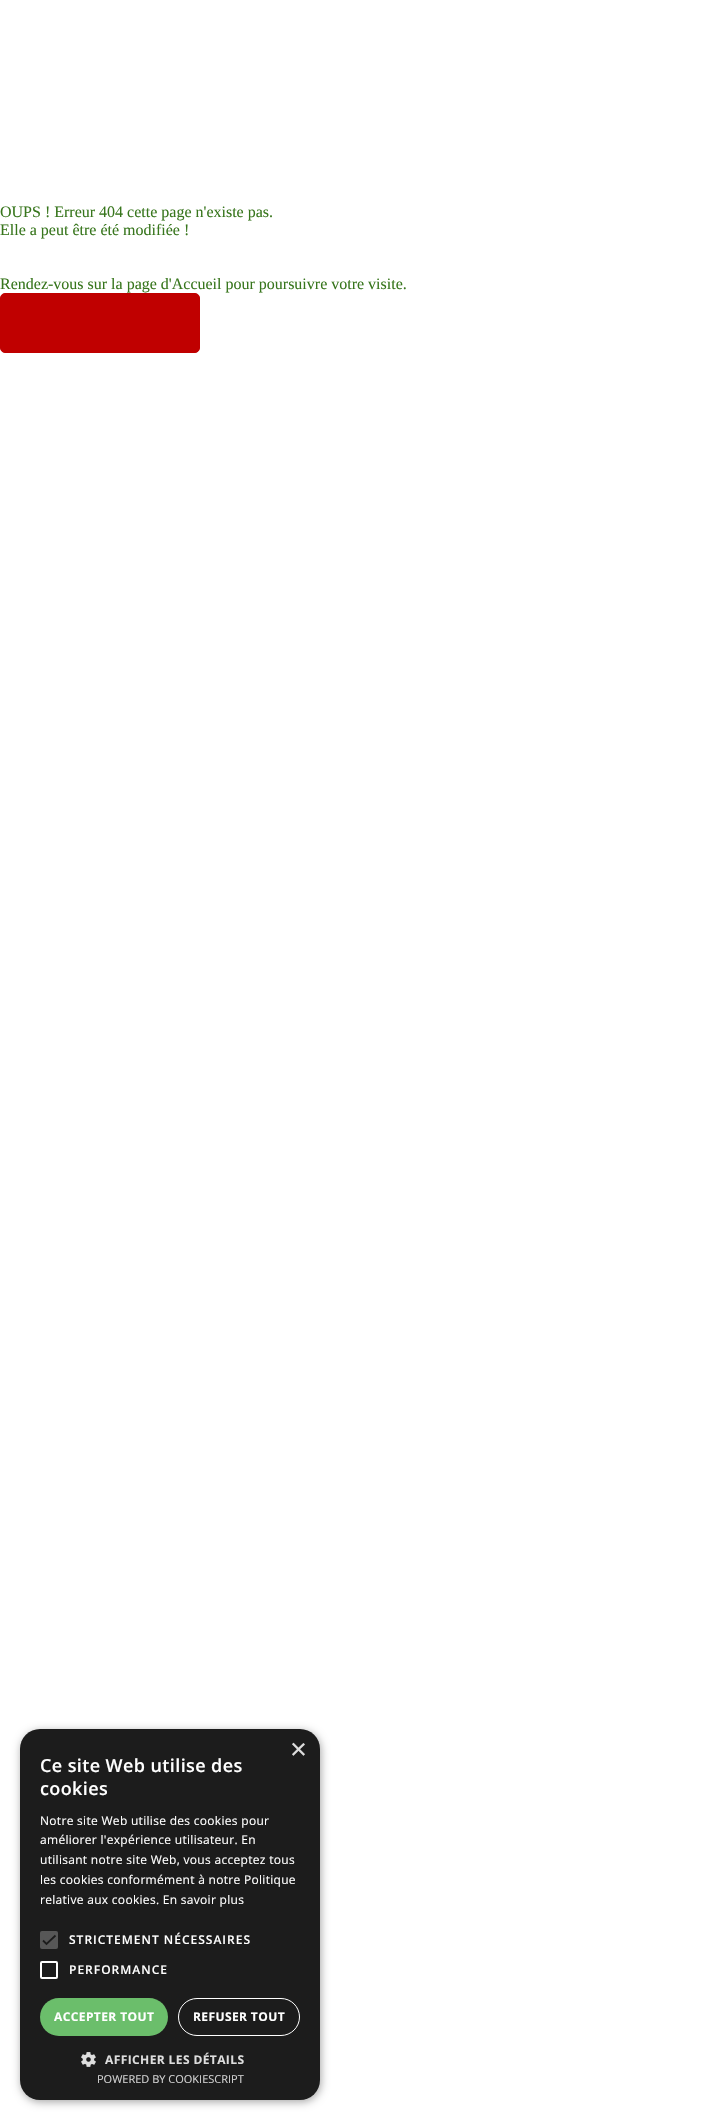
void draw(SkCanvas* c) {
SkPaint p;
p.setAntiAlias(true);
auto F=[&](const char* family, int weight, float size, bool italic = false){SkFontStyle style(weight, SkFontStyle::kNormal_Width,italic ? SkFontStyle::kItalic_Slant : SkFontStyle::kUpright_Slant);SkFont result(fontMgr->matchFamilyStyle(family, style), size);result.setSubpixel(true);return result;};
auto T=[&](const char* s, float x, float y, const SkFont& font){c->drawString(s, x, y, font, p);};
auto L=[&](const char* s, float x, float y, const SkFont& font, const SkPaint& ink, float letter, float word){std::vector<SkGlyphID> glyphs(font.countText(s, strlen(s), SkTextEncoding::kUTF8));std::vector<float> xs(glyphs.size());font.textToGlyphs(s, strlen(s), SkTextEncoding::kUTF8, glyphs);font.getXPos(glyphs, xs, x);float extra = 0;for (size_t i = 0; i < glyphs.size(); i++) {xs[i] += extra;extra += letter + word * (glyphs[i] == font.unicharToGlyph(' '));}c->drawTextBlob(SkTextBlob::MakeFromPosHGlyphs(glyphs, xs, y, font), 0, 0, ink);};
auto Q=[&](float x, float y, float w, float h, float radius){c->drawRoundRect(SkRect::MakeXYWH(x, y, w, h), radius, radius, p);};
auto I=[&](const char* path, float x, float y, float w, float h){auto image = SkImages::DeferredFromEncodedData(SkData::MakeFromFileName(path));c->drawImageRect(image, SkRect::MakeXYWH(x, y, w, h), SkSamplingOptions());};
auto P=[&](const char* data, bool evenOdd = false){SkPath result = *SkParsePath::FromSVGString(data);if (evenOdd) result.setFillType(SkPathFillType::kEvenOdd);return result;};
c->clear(0xffffffff);
auto f1 = F("Liberation Serif",400,16);
p.setColor(0xff38761d);
T("OUPS ! Erreur 404 cette page n'existe pas.",0,217,f1);
T("Elle a peut être été modifiée !",0,235,f1);
T("Rendez-vous sur la page d'Accueil pour poursuivre votre visite.",0,289,f1);
p.setColor(0xffc00000);
c->drawRoundRect(SkRect::MakeXYWH(.5,293.5,199,59),4.5,4.5,p);
p.setStroke(true);
p.setStrokeWidth(1);
c->drawRoundRect(SkRect::MakeXYWH(.5,293.5,199,59),4.5,4.5,p);
p.setStroke(false);
p.setColor(0x59000000);
p.setMaskFilter(SkMaskFilter::MakeBlur(kNormal_SkBlurStyle, 4));
c->drawRoundRect(SkRect::MakeXYWH(21,1731,300,371),20,20,p);
p.setMaskFilter(nullptr);
p.setColor(0xff1c1c1c);
Q(20,1729,300,371,20);
auto f2 = F("Liberation Sans",400,29);
p.setColor(0xffdddddd);
T("×",290,1759,f2);
auto f3 = F("Open Sans",600,18);
p.setColor(0xffffffff);
L("Ce site Web utilise des",40,1772,f3,p,.4,0);
L("cookies",40,1795,f3,p,.4,0);
auto f4 = F("Open Sans",400,12);
L("Notre site Web utilise des cookies pour",40,1825,f4,p,.3,0);
L("améliorer l'expérience utilisateur. En",40,1844,f4,p,.3,0);
L("utilisant notre site Web, vous acceptez tous",40,1864,f4,p,.3,0);
L("les cookies conformément à notre Politique",40,1884,f4,p,.3,0);
L("relative aux cookies. En savoir plus",40,1904,f4,p,.3,0);
p.setColor(0xff575757);
Q(40,1931,18,18,2);
p.setStroke(true);
p.setStrokeWidth(1.8);
p.setColor(0xff1c1c1c);
c->drawPath(P("M43 1940.5l3.5 3.5l9-8.5"),p);
auto f5 = F("Open Sans",600,12);
p.setStroke(false);
p.setColor(0xffffffff);
L("STRICTEMENT NÉCESSAIRES",69,1944,f5,p,1,0);
p.setStroke(true);
p.setStrokeWidth(2);
c->drawRoundRect(SkRect::MakeXYWH(41,1962,16,16),1,1,p);
p.setStroke(false);
L("PERFORMANCE",69,1974,f5,p,1,0);
p.setColor(0xff6bbe6b);
Q(40,1998,128,38,19);
auto f6 = F("Open Sans",700,12);
p.setColor(0xffffffff);
L("ACCEPTER TOUT",54,2021,f6,p,.4,0);
p.setStroke(true);
p.setStrokeWidth(1);
c->drawRoundRect(SkRect::MakeXYWH(178.5,1998.5,121,37),18.5,18.5,p);
p.setStroke(false);
L("REFUSER TOUT",193,2021,f6,p,.4,0);
I("1.png",81,2052,15,15);
p.setColor(0xffdddddd);
L("AFFICHER LES DÉTAILS",105,2064,f6,p,.4,0);
auto f7 = F("Open Sans",400,11);
p.setColor(0xffd2d2d2);
T("POWERED BY COOKIESCRIPT",97,2083,f7);
}
